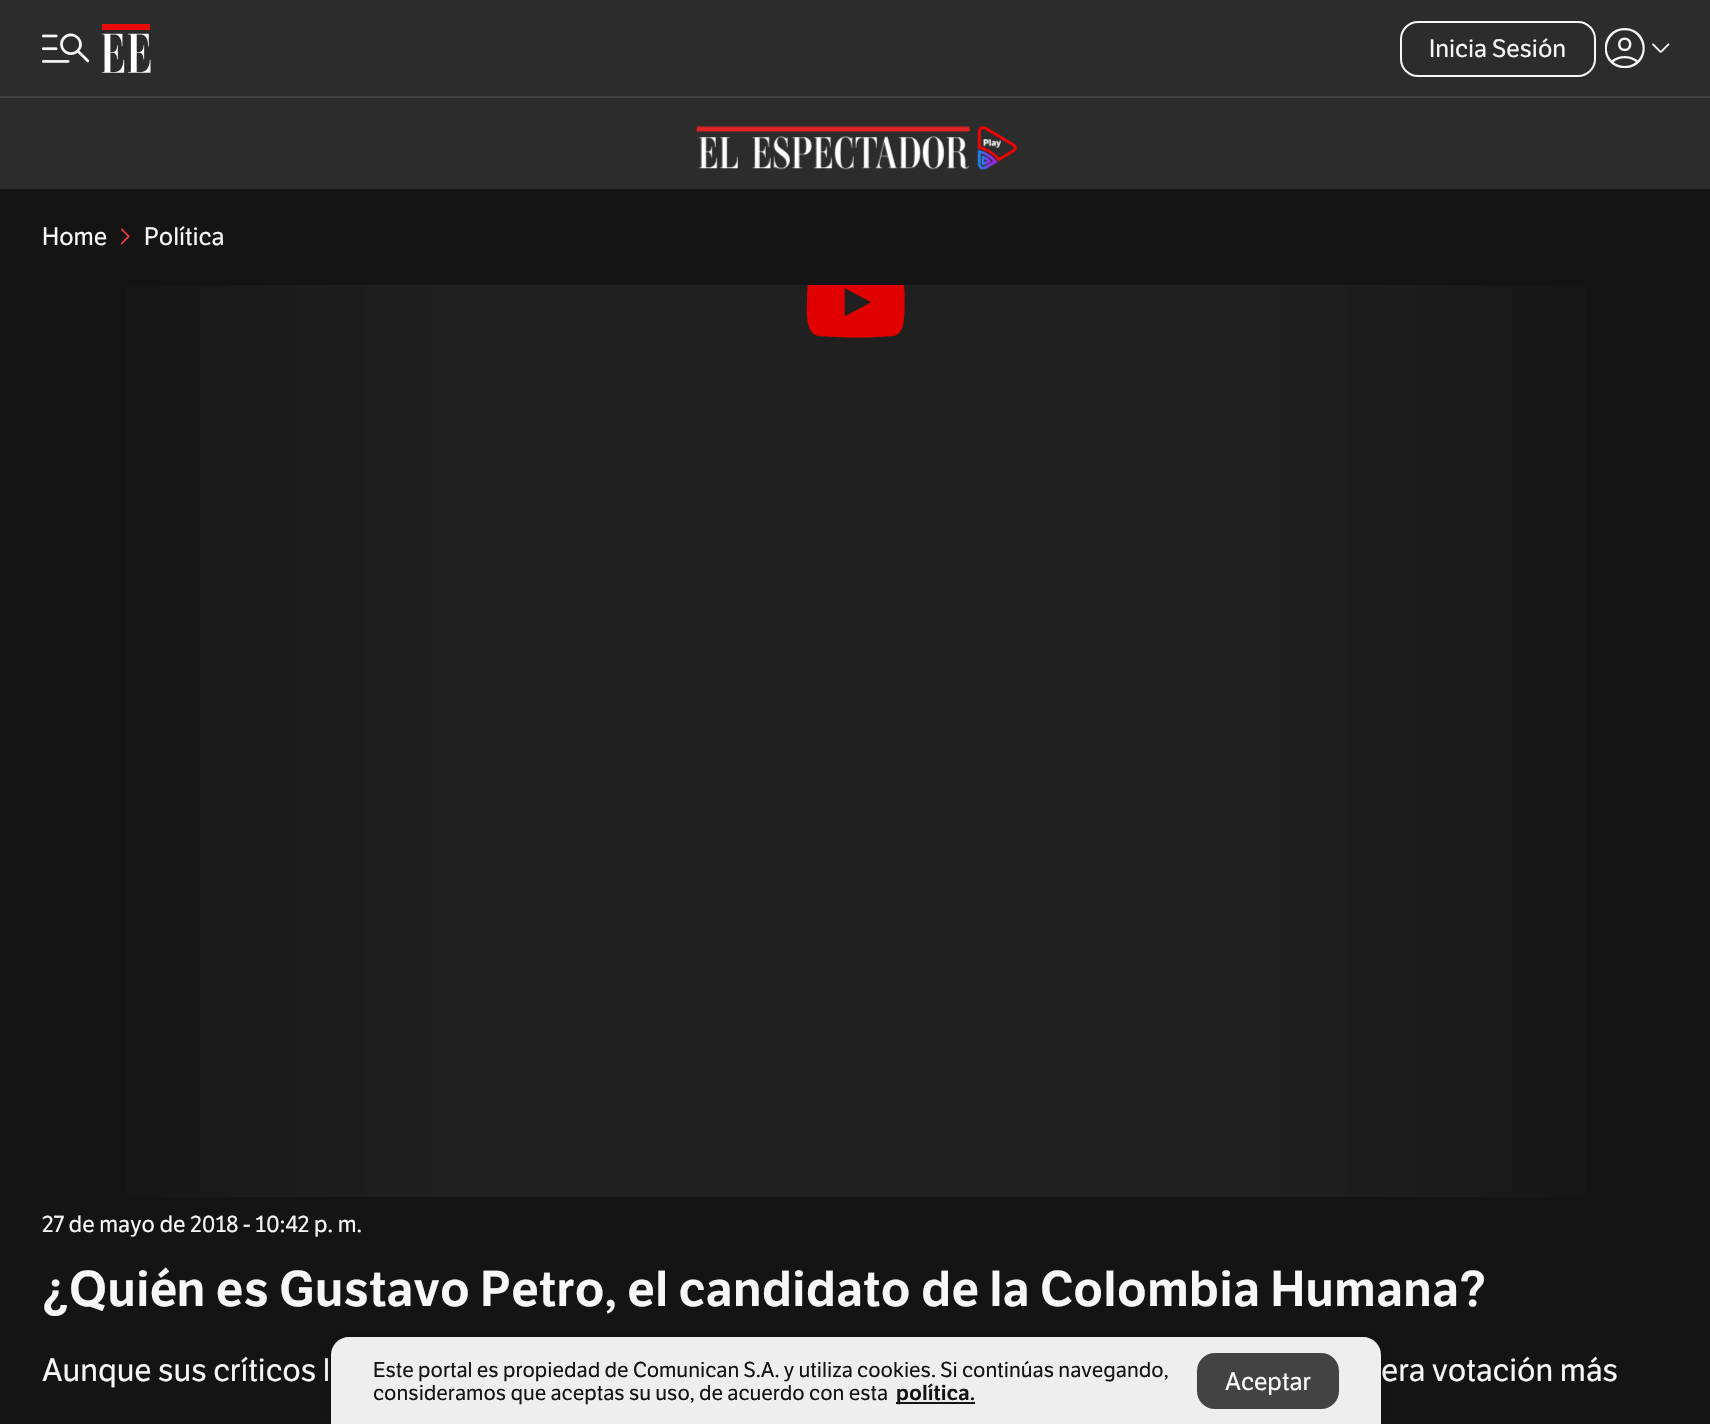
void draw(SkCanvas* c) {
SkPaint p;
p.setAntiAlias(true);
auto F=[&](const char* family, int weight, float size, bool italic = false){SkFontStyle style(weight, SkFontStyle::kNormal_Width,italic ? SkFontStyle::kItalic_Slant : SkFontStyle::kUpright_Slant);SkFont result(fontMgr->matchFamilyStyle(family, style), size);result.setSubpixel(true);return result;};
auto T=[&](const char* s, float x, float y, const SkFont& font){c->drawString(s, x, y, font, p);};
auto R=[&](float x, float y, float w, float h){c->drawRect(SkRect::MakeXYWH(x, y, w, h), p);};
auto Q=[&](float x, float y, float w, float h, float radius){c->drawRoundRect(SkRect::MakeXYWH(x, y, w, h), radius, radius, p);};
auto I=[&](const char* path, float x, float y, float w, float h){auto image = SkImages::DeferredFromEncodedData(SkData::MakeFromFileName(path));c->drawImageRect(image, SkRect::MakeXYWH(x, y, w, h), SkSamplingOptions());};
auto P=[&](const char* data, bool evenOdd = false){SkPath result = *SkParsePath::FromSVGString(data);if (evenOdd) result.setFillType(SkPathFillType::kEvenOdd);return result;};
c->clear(0xff141414);
p.setColor(0xff2c2c2c);
R(0,0,1710,189);
p.setColor(0xff434343);
R(0,96,1710,2);
I("1.png",42,33,47,30);
I("2.png",102,24,49,49);
p.setStroke(true);
p.setStrokeWidth(2);
p.setColor(0xfff7f7f7);
c->drawRoundRect(SkRect::MakeXYWH(1401,22,194,54),17,17,p);
auto f1 = F("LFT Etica",400,24.5);
p.setStroke(false);
T("Inicia Sesión",1429,57,f1);
I("3.png",1605,28,40,40);
I("4.png",1652,43,18,10);
I("5.png",696,126,321,44);
T("Home",42,245,f1);
I("6.png",121,228,9,17);
T("Política",144,245,f1);
{
const SkColor colors[] = {0xff141414,0xff202020,0xff202020,0xff141414};
const float stops[] = {0,.25,.75,1};
const SkPoint ends[] = {{1670,741}, {42,741}};
p.setShader(SkGradientShader::MakeLinear(ends, colors, stops, 4, SkTileMode::kClamp));
p.setAlpha(255);
}
R(127,285,1458,912);
I("7.png",806,285,99,53);
auto f2 = F("LFT Etica",400,22.75);
p.setShader(nullptr);
p.setColor(0xfff7f7f7);
T("27 de mayo de 2018 - 10:42 p. m.",42,1232,f2);
auto f3 = F("LFT Etica",600,49);
T("¿Quién es Gustavo Petro, el candidato de la Colombia Humana?",42,1306,f3);
auto f4 = F("LFT Etica",400,31.5);
T("Aunque sus críticos l",42,1381,f4);
T("era votación más",1381,1381,f4);
p.setColor(0x29000000);
p.setMaskFilter(SkMaskFilter::MakeBlur(kNormal_SkBlurStyle, 5));
c->drawRoundRect(SkRect::MakeXYWH(331,1335,1050,88),18,18,p);
p.setMaskFilter(nullptr);
p.setColor(0xffeeeeee);
c->drawPath(P("M349 1337h1014c10 0 18 8 18 18v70h-1050v-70c0-10 8-18 18-18z"),p);
auto f5 = F("LFT Etica",400,21);
p.setColor(0xff141414);
T("Este portal es propiedad de Comunican S.A. y utiliza cookies. Si continúas navegando,",373,1377,f5);
T("consideramos que aceptas su uso, de acuerdo con esta",373,1400,f5);
R(896,1402,79,2);
auto f6 = F("LFT Etica",600,21);
T("política.",896,1400,f6);
p.setColor(0xff434343);
Q(1197,1353,142,56,18);
p.setColor(0xffffffff);
T("Aceptar",1225,1390,f1);
}
